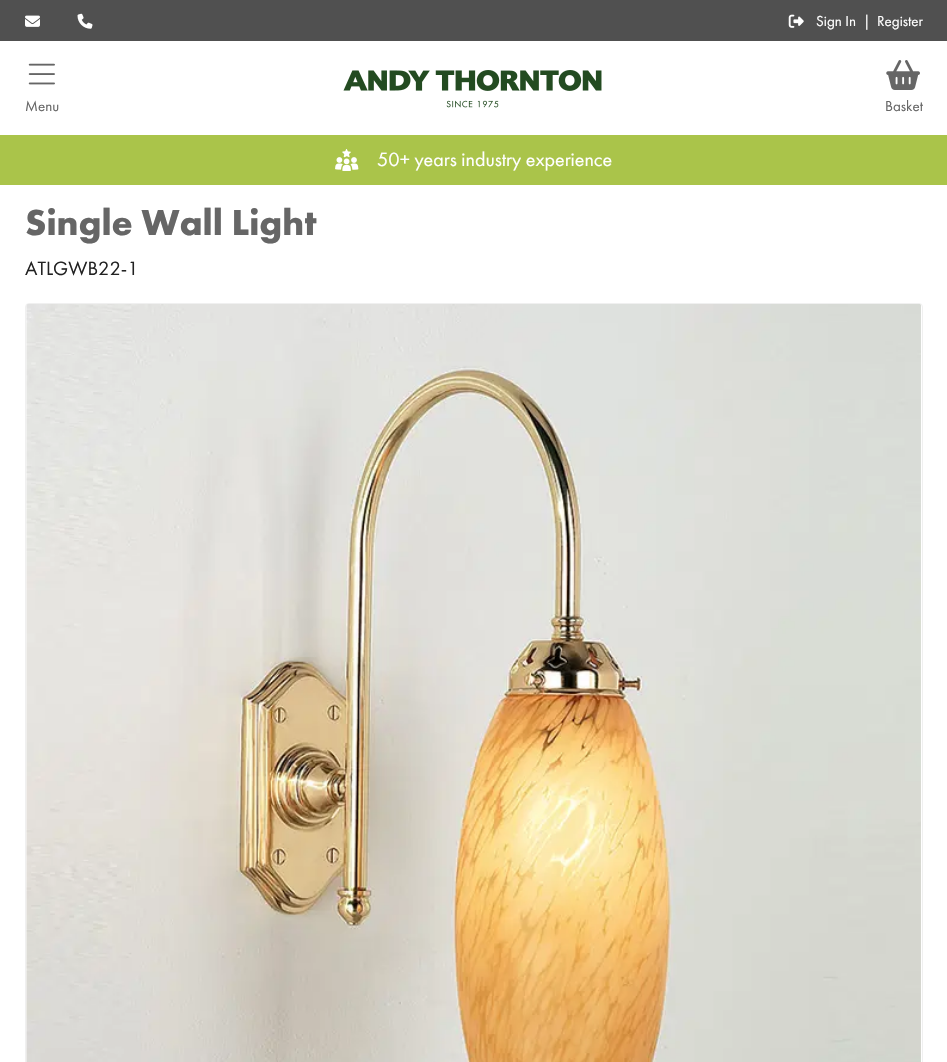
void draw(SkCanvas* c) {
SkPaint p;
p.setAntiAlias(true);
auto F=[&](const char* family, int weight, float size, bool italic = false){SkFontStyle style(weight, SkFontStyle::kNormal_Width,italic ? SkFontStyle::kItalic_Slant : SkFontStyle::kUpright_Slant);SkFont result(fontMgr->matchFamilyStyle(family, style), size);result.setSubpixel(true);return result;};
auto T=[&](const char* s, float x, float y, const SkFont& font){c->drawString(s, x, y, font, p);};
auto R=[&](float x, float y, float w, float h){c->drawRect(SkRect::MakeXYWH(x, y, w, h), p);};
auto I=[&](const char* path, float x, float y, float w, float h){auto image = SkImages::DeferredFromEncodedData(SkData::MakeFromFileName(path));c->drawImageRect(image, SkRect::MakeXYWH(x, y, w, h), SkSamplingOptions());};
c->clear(0xffffffff);
p.setColor(0xff505050);
R(0,0,947,41);
I("1.png",25,15,15,12);
I("2.png",77,13,16,16);
I("3.png",788,14,16,14);
auto f1 = F("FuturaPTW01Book",400,15);
p.setColor(0xffffffff);
T("Sign In",816,26,f1);
T("|",863,26,f1);
T("Register",877,26,f1);
I("4.png",28,63,27,22);
p.setColor(0xff666666);
T("Menu",25,111,f1);
I("5.png",343,70,259,38);
I("6.png",886,60,34,30);
T("Basket",885,111,f1);
p.setColor(0xffaac44a);
R(0,135,947,50);
I("7.png",335,149,24,22);
auto f2 = F("FuturaPTW01Book",400,20);
p.setColor(0xffffffff);
T("50+ years industry experience",377,166,f2);
auto f3 = F("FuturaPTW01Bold",700,37.5);
p.setColor(0xff666666);
T("Single Wall Light",25,235,f3);
p.setColor(0xff222222);
T("ATLGWB22-1",25,275,f2);
p.setStroke(true);
p.setStrokeWidth(1);
p.setColor(0xfff0f0f0);
c->drawRoundRect(SkRect::MakeXYWH(25.5,303.5,897,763),3.5,3.5,p);
I("8.png",26,304,895,758);
}
